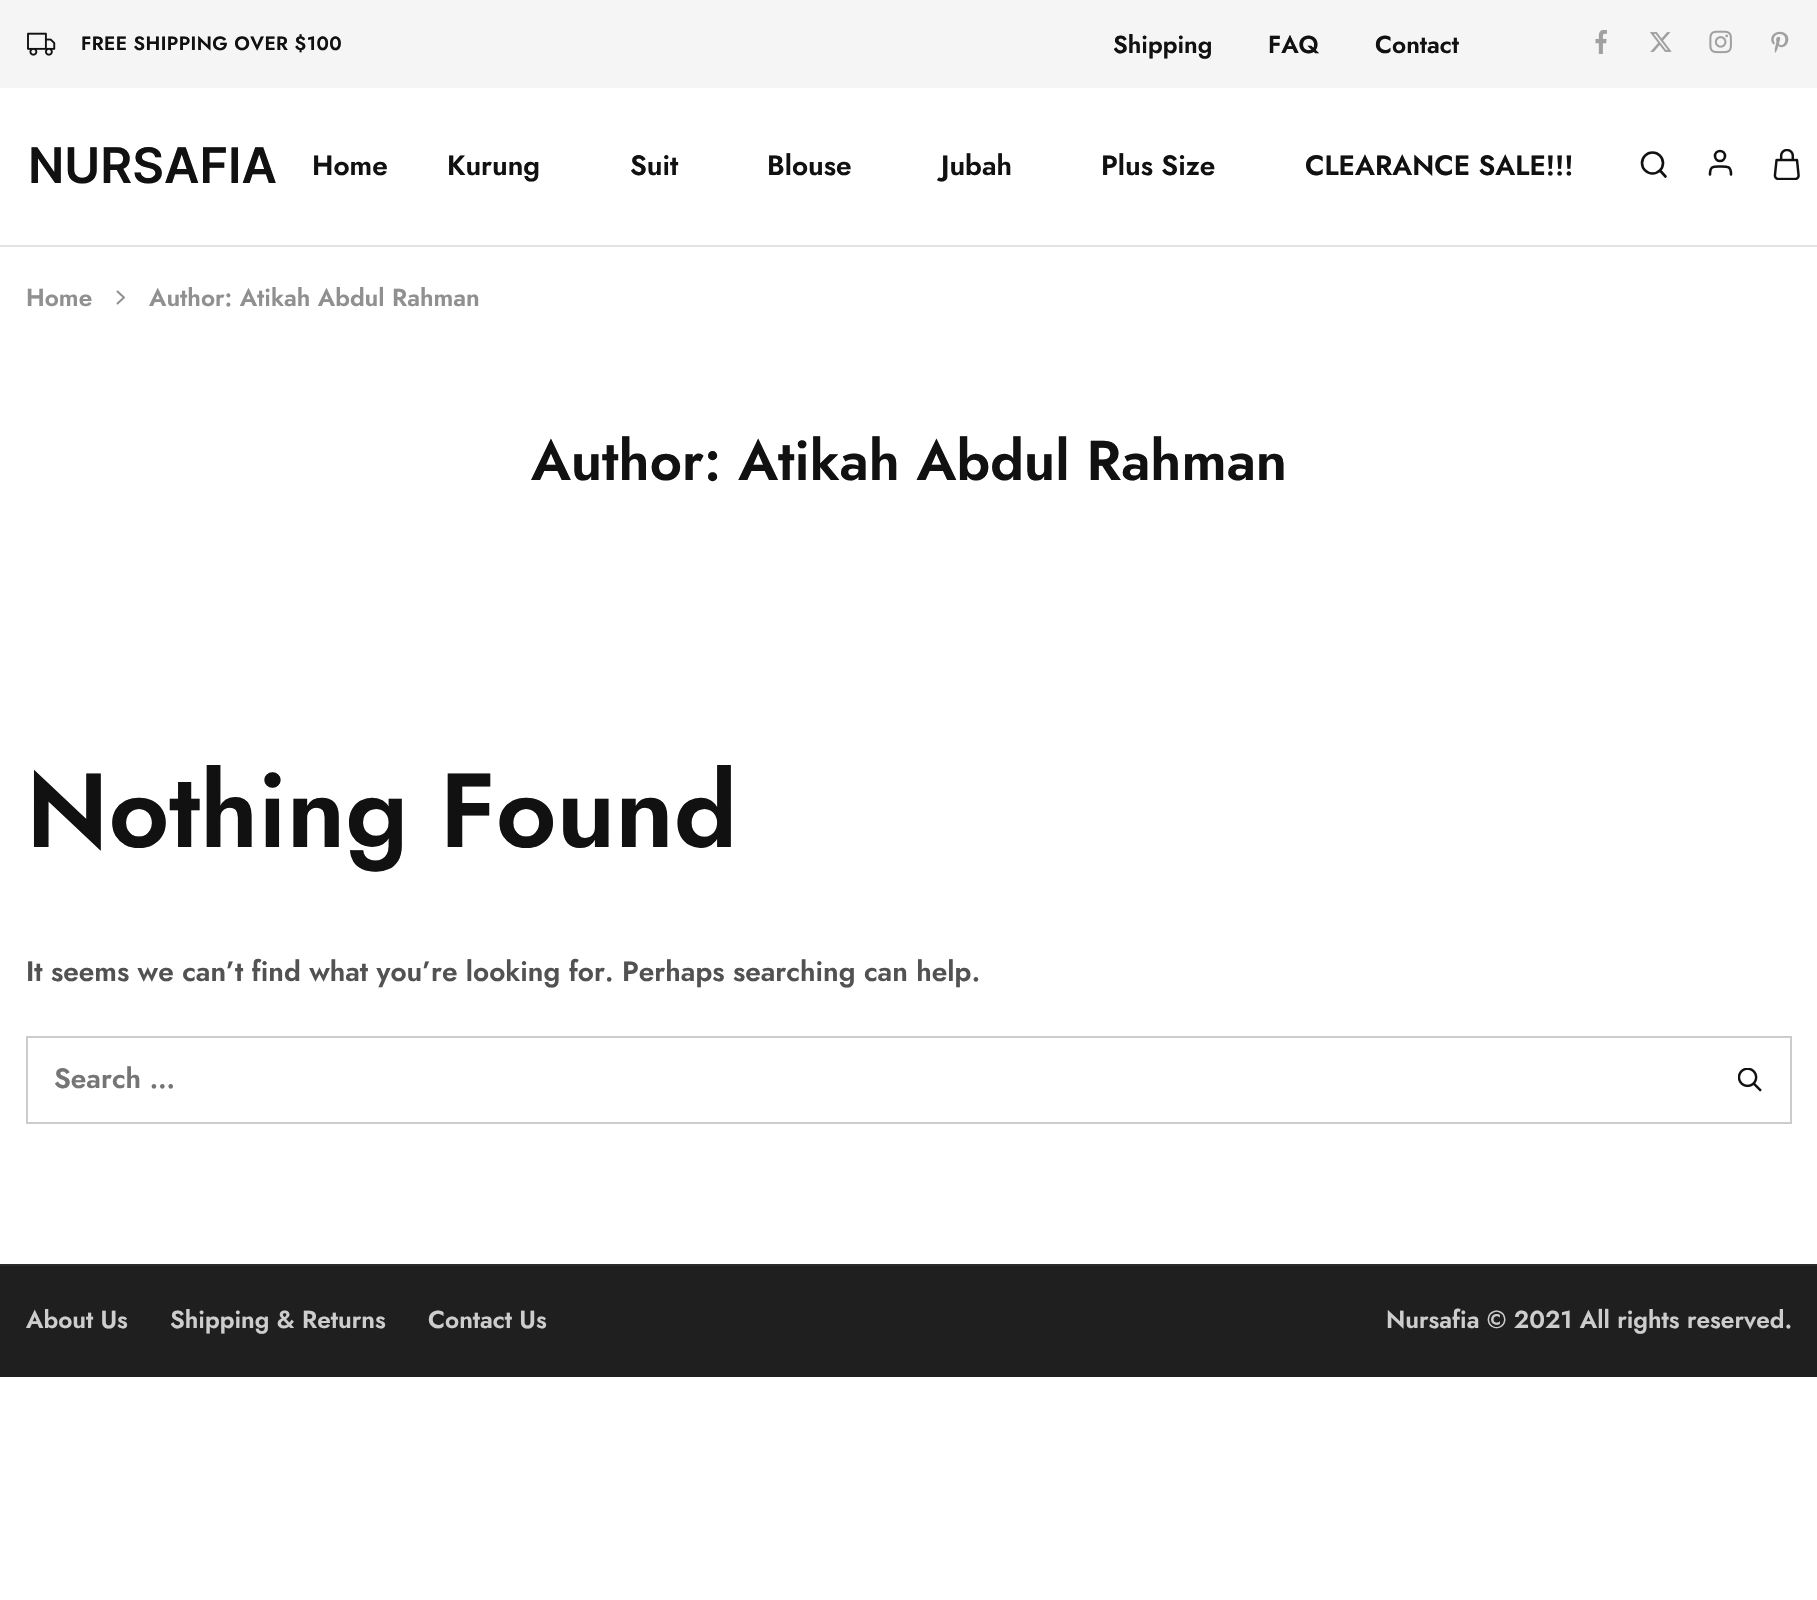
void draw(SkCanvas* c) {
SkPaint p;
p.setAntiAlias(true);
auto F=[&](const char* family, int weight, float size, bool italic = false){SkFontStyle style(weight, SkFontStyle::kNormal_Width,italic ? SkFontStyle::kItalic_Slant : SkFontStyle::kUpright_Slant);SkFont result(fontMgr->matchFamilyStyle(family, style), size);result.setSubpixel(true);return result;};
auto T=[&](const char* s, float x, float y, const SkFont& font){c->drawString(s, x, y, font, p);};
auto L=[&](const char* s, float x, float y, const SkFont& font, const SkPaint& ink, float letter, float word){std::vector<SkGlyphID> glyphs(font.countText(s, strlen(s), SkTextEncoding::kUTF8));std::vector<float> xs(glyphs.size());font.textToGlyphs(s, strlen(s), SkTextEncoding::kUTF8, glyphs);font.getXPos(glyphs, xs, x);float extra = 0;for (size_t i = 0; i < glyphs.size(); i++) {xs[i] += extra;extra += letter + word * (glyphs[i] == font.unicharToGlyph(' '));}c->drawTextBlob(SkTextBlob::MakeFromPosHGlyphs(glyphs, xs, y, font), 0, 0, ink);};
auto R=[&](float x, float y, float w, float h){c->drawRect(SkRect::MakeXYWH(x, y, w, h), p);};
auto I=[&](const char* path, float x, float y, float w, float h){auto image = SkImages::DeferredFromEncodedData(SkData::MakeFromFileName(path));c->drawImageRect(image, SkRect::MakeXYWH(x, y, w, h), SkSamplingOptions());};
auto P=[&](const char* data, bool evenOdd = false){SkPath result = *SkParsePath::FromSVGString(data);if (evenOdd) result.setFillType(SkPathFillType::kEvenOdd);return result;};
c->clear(0xffffffff);
p.setColor(0xfff5f5f5);
R(0,0,1817,88);
I("1.png",27,32,29,24);
auto f1 = F("Jost",600,19.25);
p.setColor(0xff111111);
L("FREE SHIPPING OVER $100",81,50,f1,p,.4,0);
auto f2 = F("Jost",600,24.5);
T("Shipping",1113,53,f2);
T("FAQ",1268,53,f2);
T("Contact",1375,53,f2);
I("2.png",1595,30,12,24);
I("3.png",1650,32,22,20);
I("4.png",1709,30,23,24);
I("5.png",1771,31,18,22);
p.setColor(0xffe2e2e2);
R(0,245,1817,2);
auto f3 = F("Inter",600,49);
p.setColor(0xff111111);
T("NURSAFIA",28,183,f3);
auto f4 = F("Jost",600,28);
T("Home",312,175,f4);
T("Kurung",447,175,f4);
T("Suit",630,175,f4);
T("Blouse",767,175,f4);
T("Jubah",941,175,f4);
T("Plus Size",1101,175,f4);
T("CLEARANCE SALE!!!",1305,175,f4);
p.setStroke(true);
p.setStrokeWidth(2.6);
c->drawCircle(1652.5,163,10.5,p);
p.setStrokeCap(SkPaint::kRound_Cap);
p.setStrokeJoin(SkPaint::kRound_Join);
c->drawPath(P("M1665.5 176.5l-5.5-6"),p);
c->drawPath(P("M1731 174.5c0-8.5-3.5-8-11-8c-7 0-10-.5-10 8"),p);
p.setStrokeCap(SkPaint::kButt_Cap);
p.setStrokeJoin(SkPaint::kMiter_Join);
c->drawCircle(1720,156,5,p);
I("6.png",1773,149,27,31);
p.setStroke(false);
p.setColor(0xff909090);
T("Home",26,306,f2);
p.setStroke(true);
p.setStrokeWidth(2);
p.setStrokeCap(SkPaint::kRound_Cap);
p.setStrokeJoin(SkPaint::kRound_Join);
c->drawPath(P("M117.5 303.5l6.5-6l-6.5-6"),p);
p.setStroke(false);
T("Author: Atikah Abdul Rahman",149,306,f2);
auto f5 = F("Jost",600,56);
p.setColor(0xff111111);
T("Author: Atikah Abdul Rahman",531,480,f5);
auto f6 = F("Jost",600,105);
T("Nothing Found",26,847,f6);
p.setColor(0xff525252);
T("It seems we can’t find what you’re looking for. Perhaps searching can help.",26,981,f4);
p.setStroke(true);
p.setStrokeCap(SkPaint::kButt_Cap);
p.setStrokeJoin(SkPaint::kMiter_Join);
p.setColor(0xffcccccc);
c->drawRect(SkRect::MakeXYWH(27,1037,1764,86),p);
p.setStroke(false);
p.setColor(0xff757575);
T("Search …",54,1088,f4);
I("7.png",1738,1068,24,24);
p.setColor(0xff1f1f1f);
R(0,1266,1817,111);
p.setColor(0xff2b2b2b);
R(0,1264,1817,2);
p.setColor(0xffcdcdcd);
T("About Us",26,1328,f2);
T("Shipping & Returns",170,1328,f2);
T("Contact Us",428,1328,f2);
T("Nursafia © 2021 All rights reserved.",1386,1328,f2);
}
